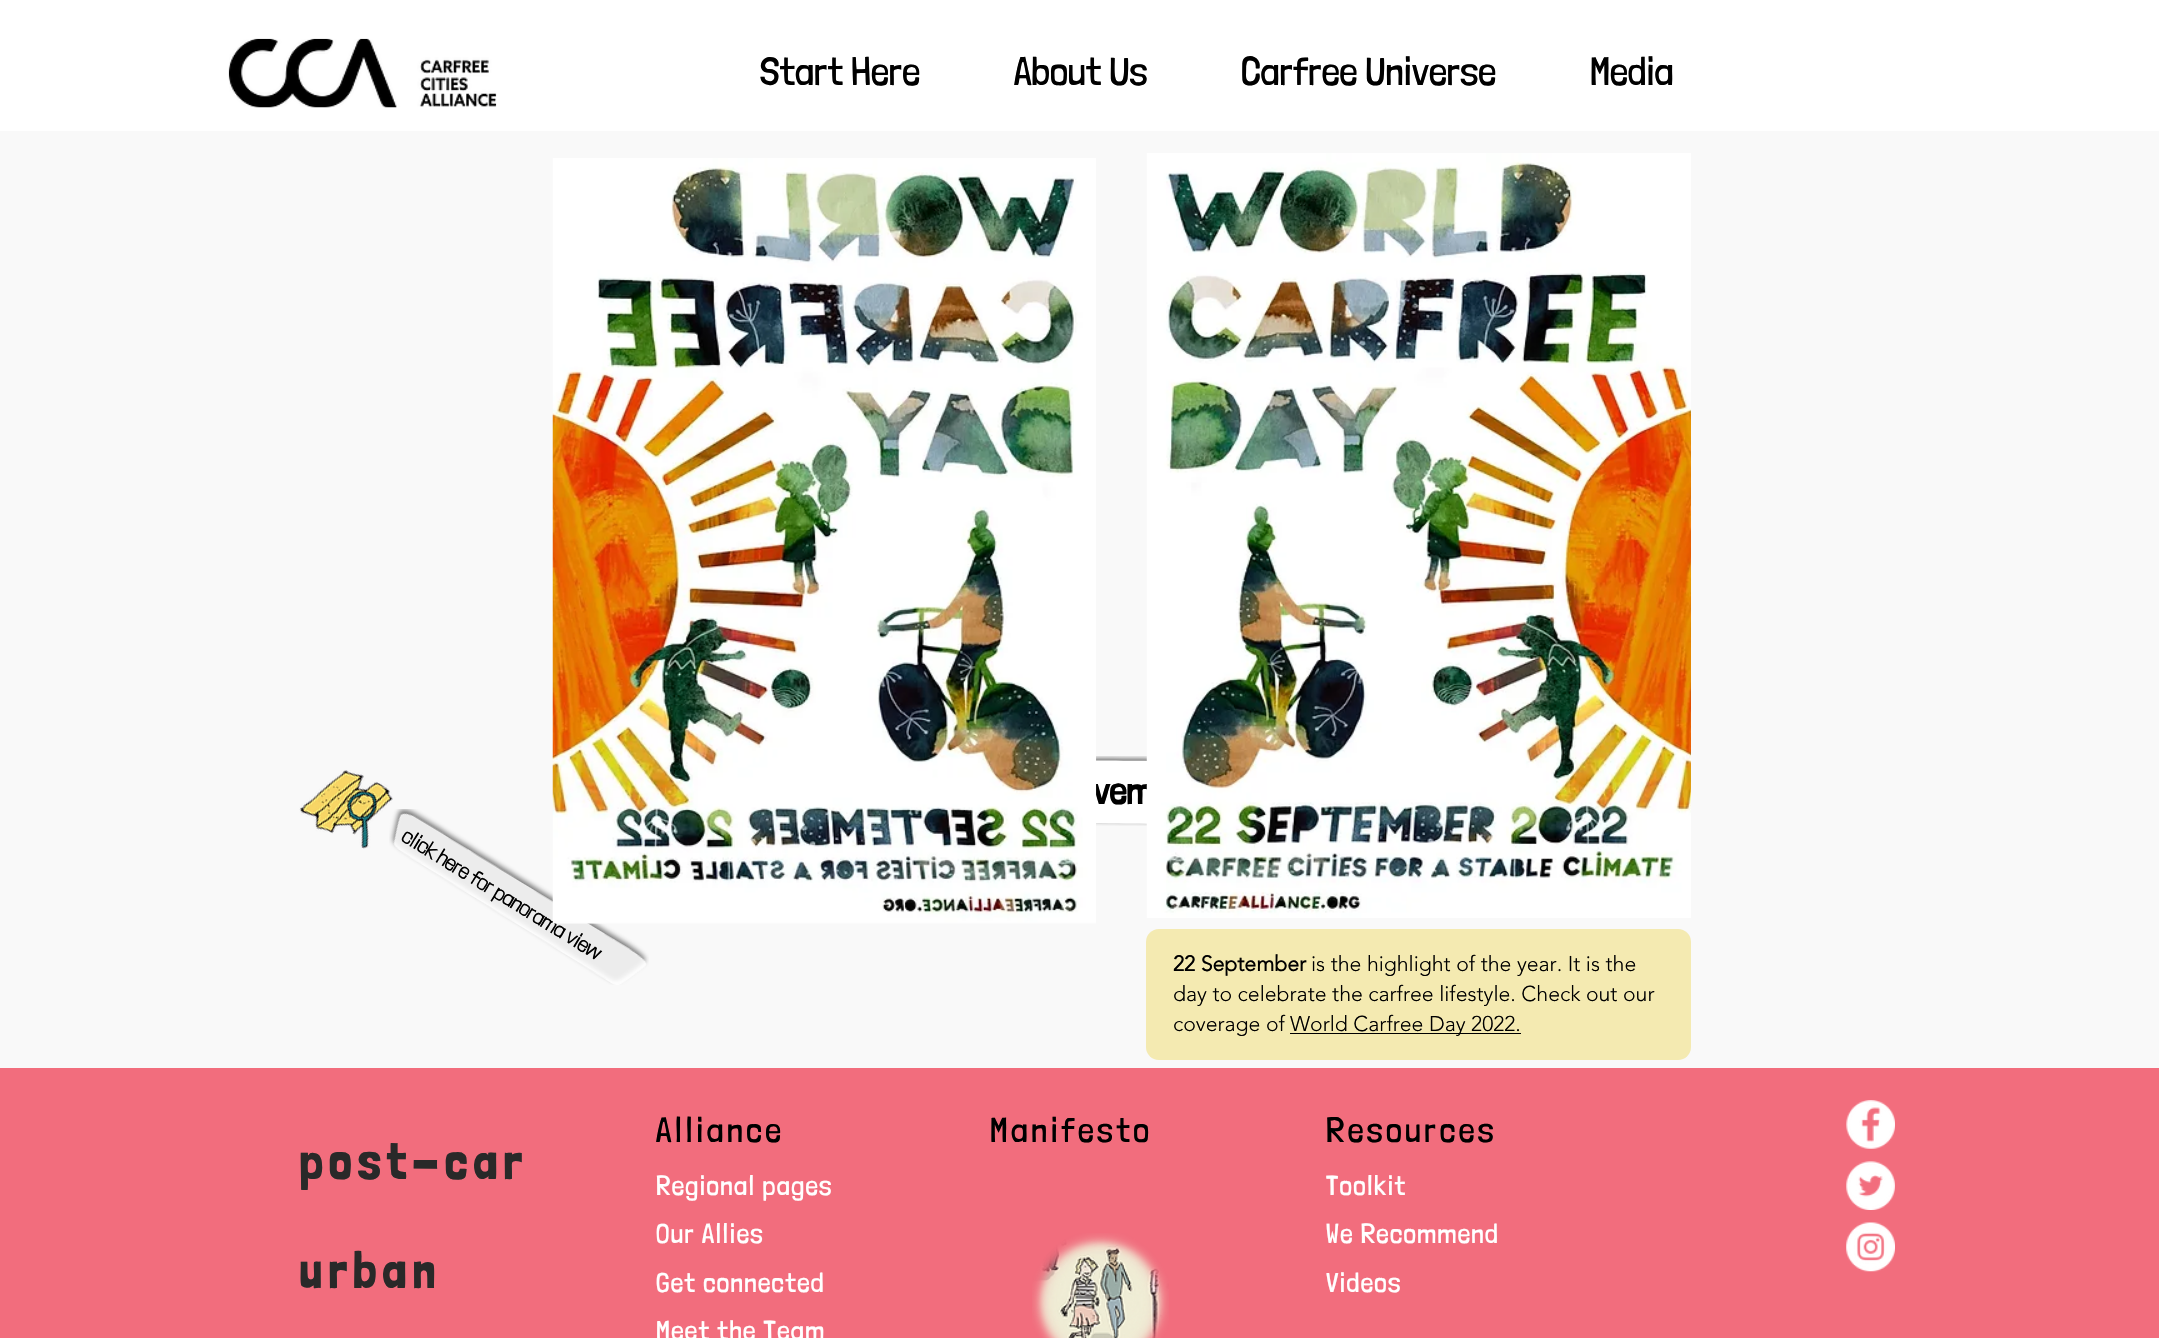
void draw(SkCanvas* c) {
SkPaint p;
p.setAntiAlias(true);
auto F=[&](const char* family, int weight, float size, bool italic = false){SkFontStyle style(weight, SkFontStyle::kNormal_Width,italic ? SkFontStyle::kItalic_Slant : SkFontStyle::kUpright_Slant);SkFont result(fontMgr->matchFamilyStyle(family, style), size);result.setSubpixel(true);return result;};
auto T=[&](const char* s, float x, float y, const SkFont& font){c->drawString(s, x, y, font, p);};
auto L=[&](const char* s, float x, float y, const SkFont& font, const SkPaint& ink, float letter, float word){std::vector<SkGlyphID> glyphs(font.countText(s, strlen(s), SkTextEncoding::kUTF8));std::vector<float> xs(glyphs.size());font.textToGlyphs(s, strlen(s), SkTextEncoding::kUTF8, glyphs);font.getXPos(glyphs, xs, x);float extra = 0;for (size_t i = 0; i < glyphs.size(); i++) {xs[i] += extra;extra += letter + word * (glyphs[i] == font.unicharToGlyph(' '));}c->drawTextBlob(SkTextBlob::MakeFromPosHGlyphs(glyphs, xs, y, font), 0, 0, ink);};
auto R=[&](float x, float y, float w, float h){c->drawRect(SkRect::MakeXYWH(x, y, w, h), p);};
auto Q=[&](float x, float y, float w, float h, float radius){c->drawRoundRect(SkRect::MakeXYWH(x, y, w, h), radius, radius, p);};
auto I=[&](const char* path, float x, float y, float w, float h){auto image = SkImages::DeferredFromEncodedData(SkData::MakeFromFileName(path));c->drawImageRect(image, SkRect::MakeXYWH(x, y, w, h), SkSamplingOptions());};
c->clear(0xfff9f9f9);
p.setColor(0xffffffff);
R(0,0,2159,131);
I("1.png",228,38,269,70);
auto f1 = F("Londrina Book",400,40);
p.setColor(0xff000000);
T("Start Here",760,85,f1);
T("About Us",1014,85,f1);
T("Carfree Universe",1241,85,f1);
T("Media",1590,85,f1);
I("2.png",1096,756,51,70);
auto f2 = F("Londrina Book",700,38);
T("vem",1093,804,f2);
I("3.png",299,770,94,79);
I("4.png",389,809,260,176);
auto f3 = F("Londrina Solid",700,21.25);
c->save();
c->rotate(31.6,400,840);
T("click here for panorama view",400,840,f3);
c->restore();
I("5.png",552,158,545,766);
I("6.png",1146,153,545,765);
p.setColor(0xfff4eab1);
Q(1146,929,545,131,13);
auto f4 = F("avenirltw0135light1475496",700,21.25);
p.setColor(0xff000000);
T("22 September",1173,971,f4);
auto f5 = F("avenirltw0135light1475496",300,21.25);
T("is the highlight of the year. It is the",1311,971,f5);
T("day to celebrate the carfree lifestyle. Check out our",1173,1001,f5);
T("coverage of",1173,1031,f5);
R(1290,1033,231,1);
T("World Carfree Day 2022.",1290,1031,f5);
p.setColor(0xfff26d7d);
R(0,1068,2159,270);
auto f6 = F("Londrina Solid",400,52.5);
p.setColor(0xff292929);
L("post-car",299,1179,f6,p,5.25,0);
L("urban",299,1288,f6,p,5.25,0);
auto f7 = F("Londrina Book",400,35);
p.setColor(0xff000000);
L("Alliance",656,1142,f7,p,3.5,0);
auto f8 = F("Londrina Book",400,27.5);
p.setColor(0xffffffff);
L("Regional pages",656,1195,f8,p,1.4,0);
L("Our Allies",656,1243,f8,p,1.4,0);
L("Get connected",656,1292,f8,p,1.4,0);
L("Meet the Team",656,1340,f8,p,1.4,0);
p.setColor(0xff000000);
L("Manifesto",990,1142,f7,p,3.5,0);
L("Resources",1326,1142,f7,p,3.5,0);
p.setColor(0xffffffff);
L("Toolkit",1326,1195,f8,p,1.4,0);
L("We Recommend",1326,1243,f8,p,1.4,0);
L("Videos",1326,1292,f8,p,1.4,0);
I("7.png",1846,1100,49,49);
I("8.png",1846,1161,49,49);
I("9.png",1846,1222,49,50);
I("10.png",1032,1233,137,105);
}
